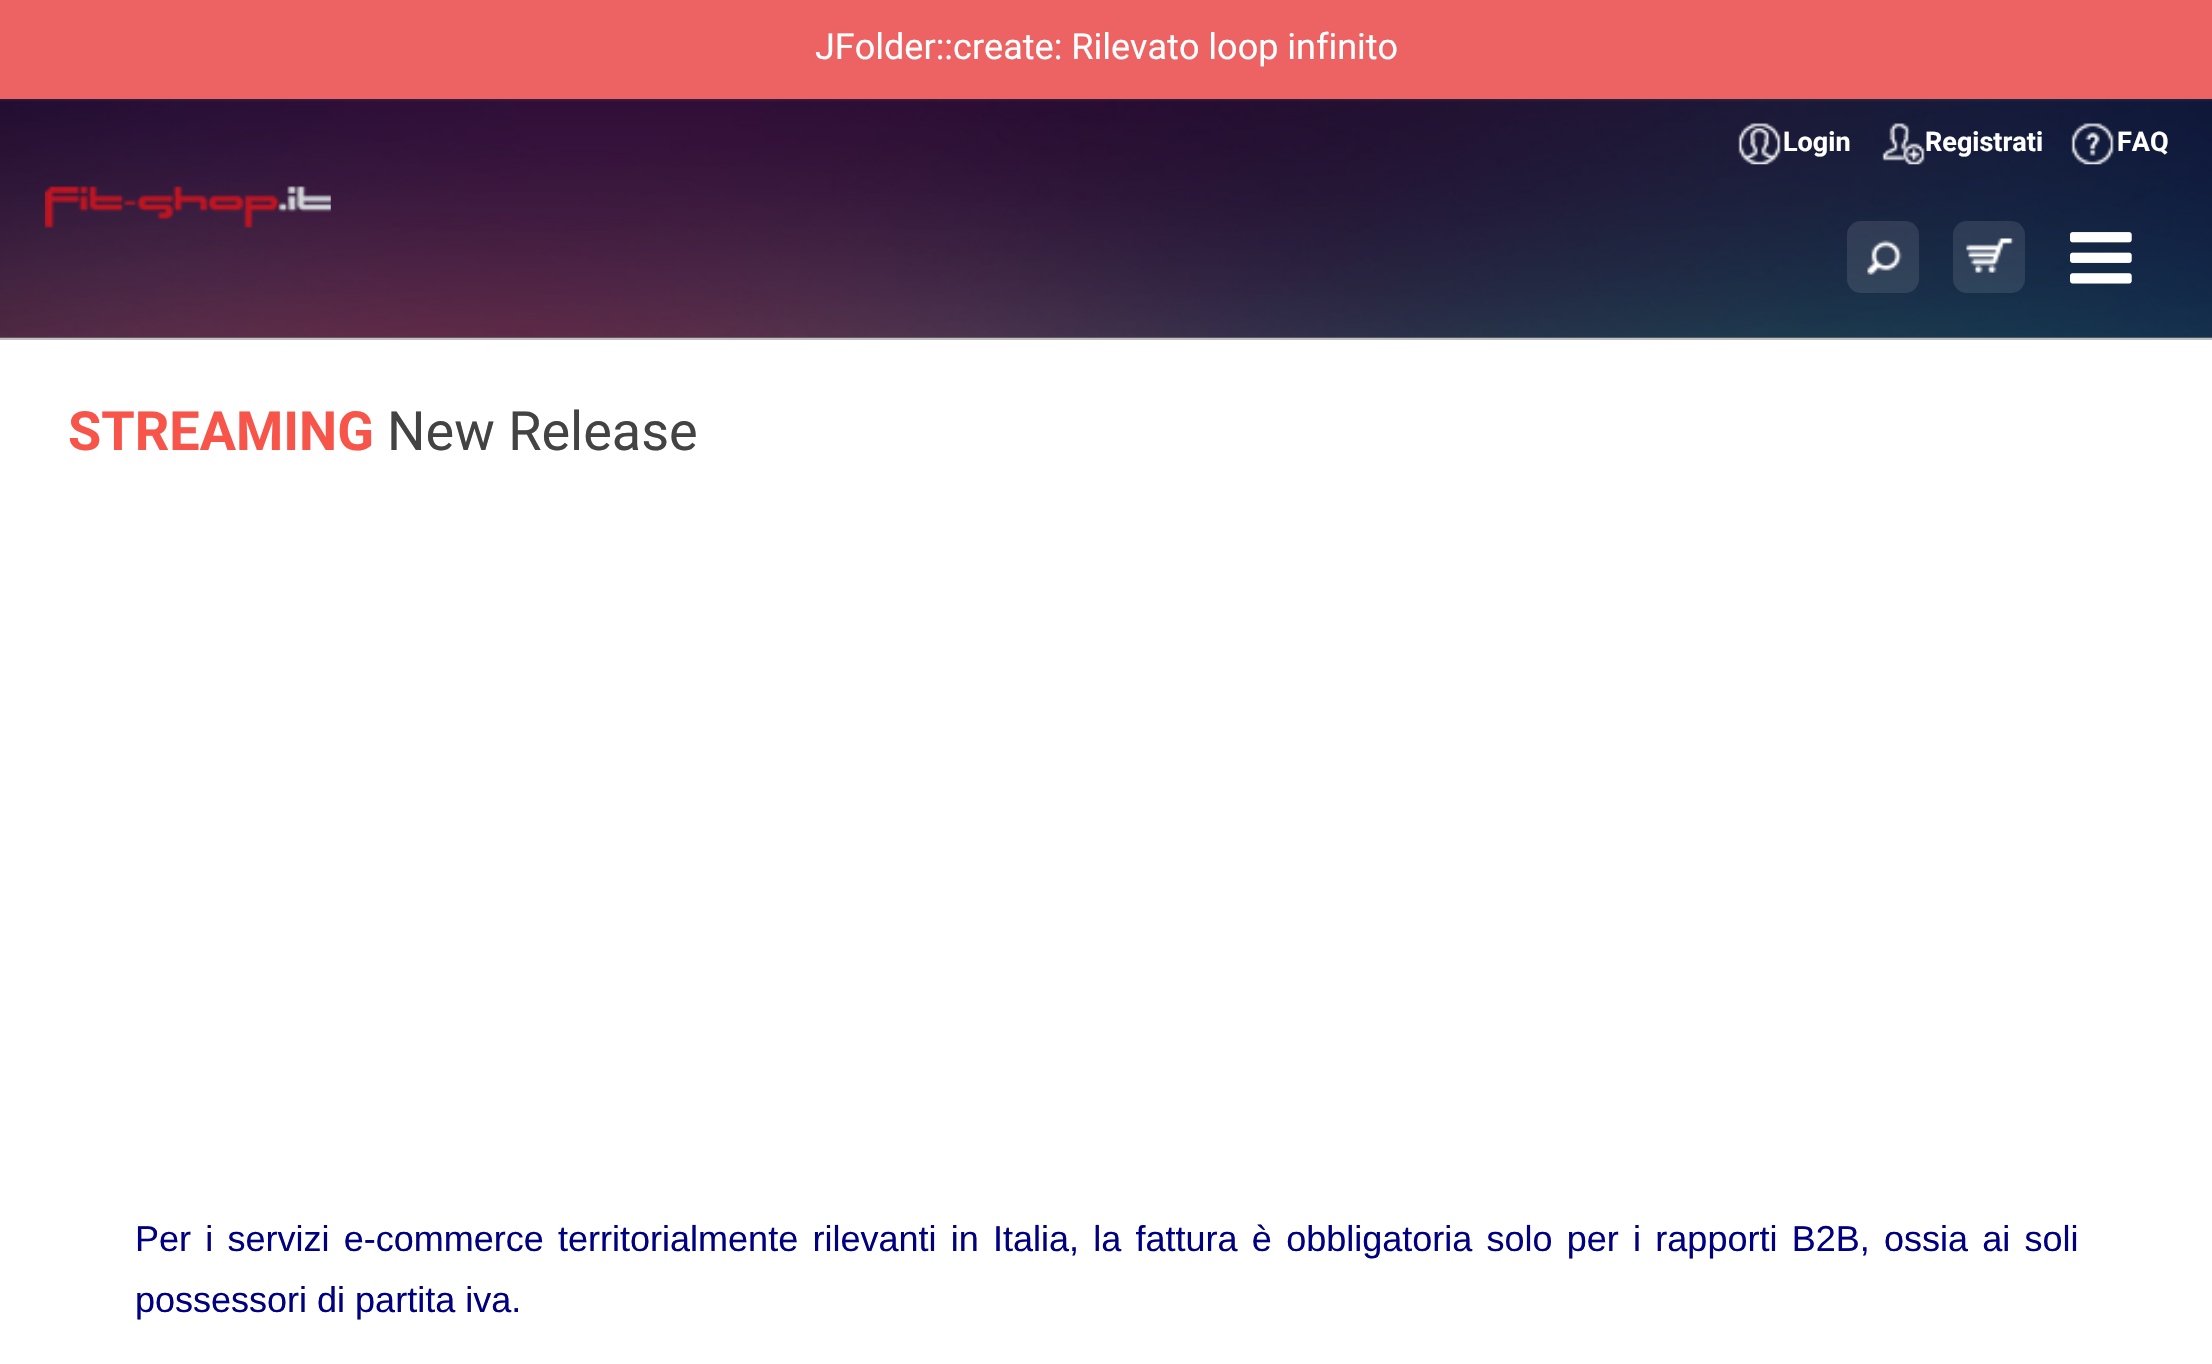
void draw(SkCanvas* c) {
SkPaint p;
p.setAntiAlias(true);
auto F=[&](const char* family, int weight, float size, bool italic = false){SkFontStyle style(weight, SkFontStyle::kNormal_Width,italic ? SkFontStyle::kItalic_Slant : SkFontStyle::kUpright_Slant);SkFont result(fontMgr->matchFamilyStyle(family, style), size);result.setSubpixel(true);return result;};
auto T=[&](const char* s, float x, float y, const SkFont& font){c->drawString(s, x, y, font, p);};
auto L=[&](const char* s, float x, float y, const SkFont& font, const SkPaint& ink, float letter, float word){std::vector<SkGlyphID> glyphs(font.countText(s, strlen(s), SkTextEncoding::kUTF8));std::vector<float> xs(glyphs.size());font.textToGlyphs(s, strlen(s), SkTextEncoding::kUTF8, glyphs);font.getXPos(glyphs, xs, x);float extra = 0;for (size_t i = 0; i < glyphs.size(); i++) {xs[i] += extra;extra += letter + word * (glyphs[i] == font.unicharToGlyph(' '));}c->drawTextBlob(SkTextBlob::MakeFromPosHGlyphs(glyphs, xs, y, font), 0, 0, ink);};
auto R=[&](float x, float y, float w, float h){c->drawRect(SkRect::MakeXYWH(x, y, w, h), p);};
auto Q=[&](float x, float y, float w, float h, float radius){c->drawRoundRect(SkRect::MakeXYWH(x, y, w, h), radius, radius, p);};
auto I=[&](const char* path, float x, float y, float w, float h){auto image = SkImages::DeferredFromEncodedData(SkData::MakeFromFileName(path));c->drawImageRect(image, SkRect::MakeXYWH(x, y, w, h), SkSamplingOptions());};
c->clear(0xffffffff);
p.setColor(0xffed6363);
R(0,0,2212,99);
auto f1 = F("Roboto",400,36);
p.setColor(0xffffffff);
T("JFolder::create: Rilevato loop infinito",815,59,f1);
p.setColor(0xff808080);
R(0,337,2212,1);
I("1.png",0,99,2212,239);
p.setColor(0xffc0c0c0);
R(0,338,2212,2);
I("2.png",1738,123,43,42);
auto f2 = F("Roboto",700,27);
p.setColor(0xffffffff);
T("Login",1783,151,f2);
I("3.png",1882,123,43,42);
T("Registrati",1925,151,f2);
I("4.png",2071,123,43,42);
T("FAQ",2117,151,f2);
I("5.png",45,186,286,42);
p.setColor(0x1affffff);
Q(1847,221,72,72,14);
I("6.png",1867,240,35,35);
Q(1953,221,72,72,14);
I("7.png",1966,238,48,35);
I("8.png",2070,232,62,52);
auto f3 = F("Roboto",700,54);
p.setColor(0xfff7544a);
T("STREAMING",68,450,f3);
auto f4 = F("Roboto",400,54);
p.setColor(0xff434343);
T("New Release",387,450,f4);
auto f5 = F("Liberation Sans",400,36);
p.setColor(0xff000080);
L("Per i servizi e-commerce territorialmente rilevanti in Italia, la fattura è obbligatoria solo per i rapporti B2B, ossia ai soli",135,1251,f5,p,0,4.25);
T("possessori di partita iva.",135,1312,f5);
}
